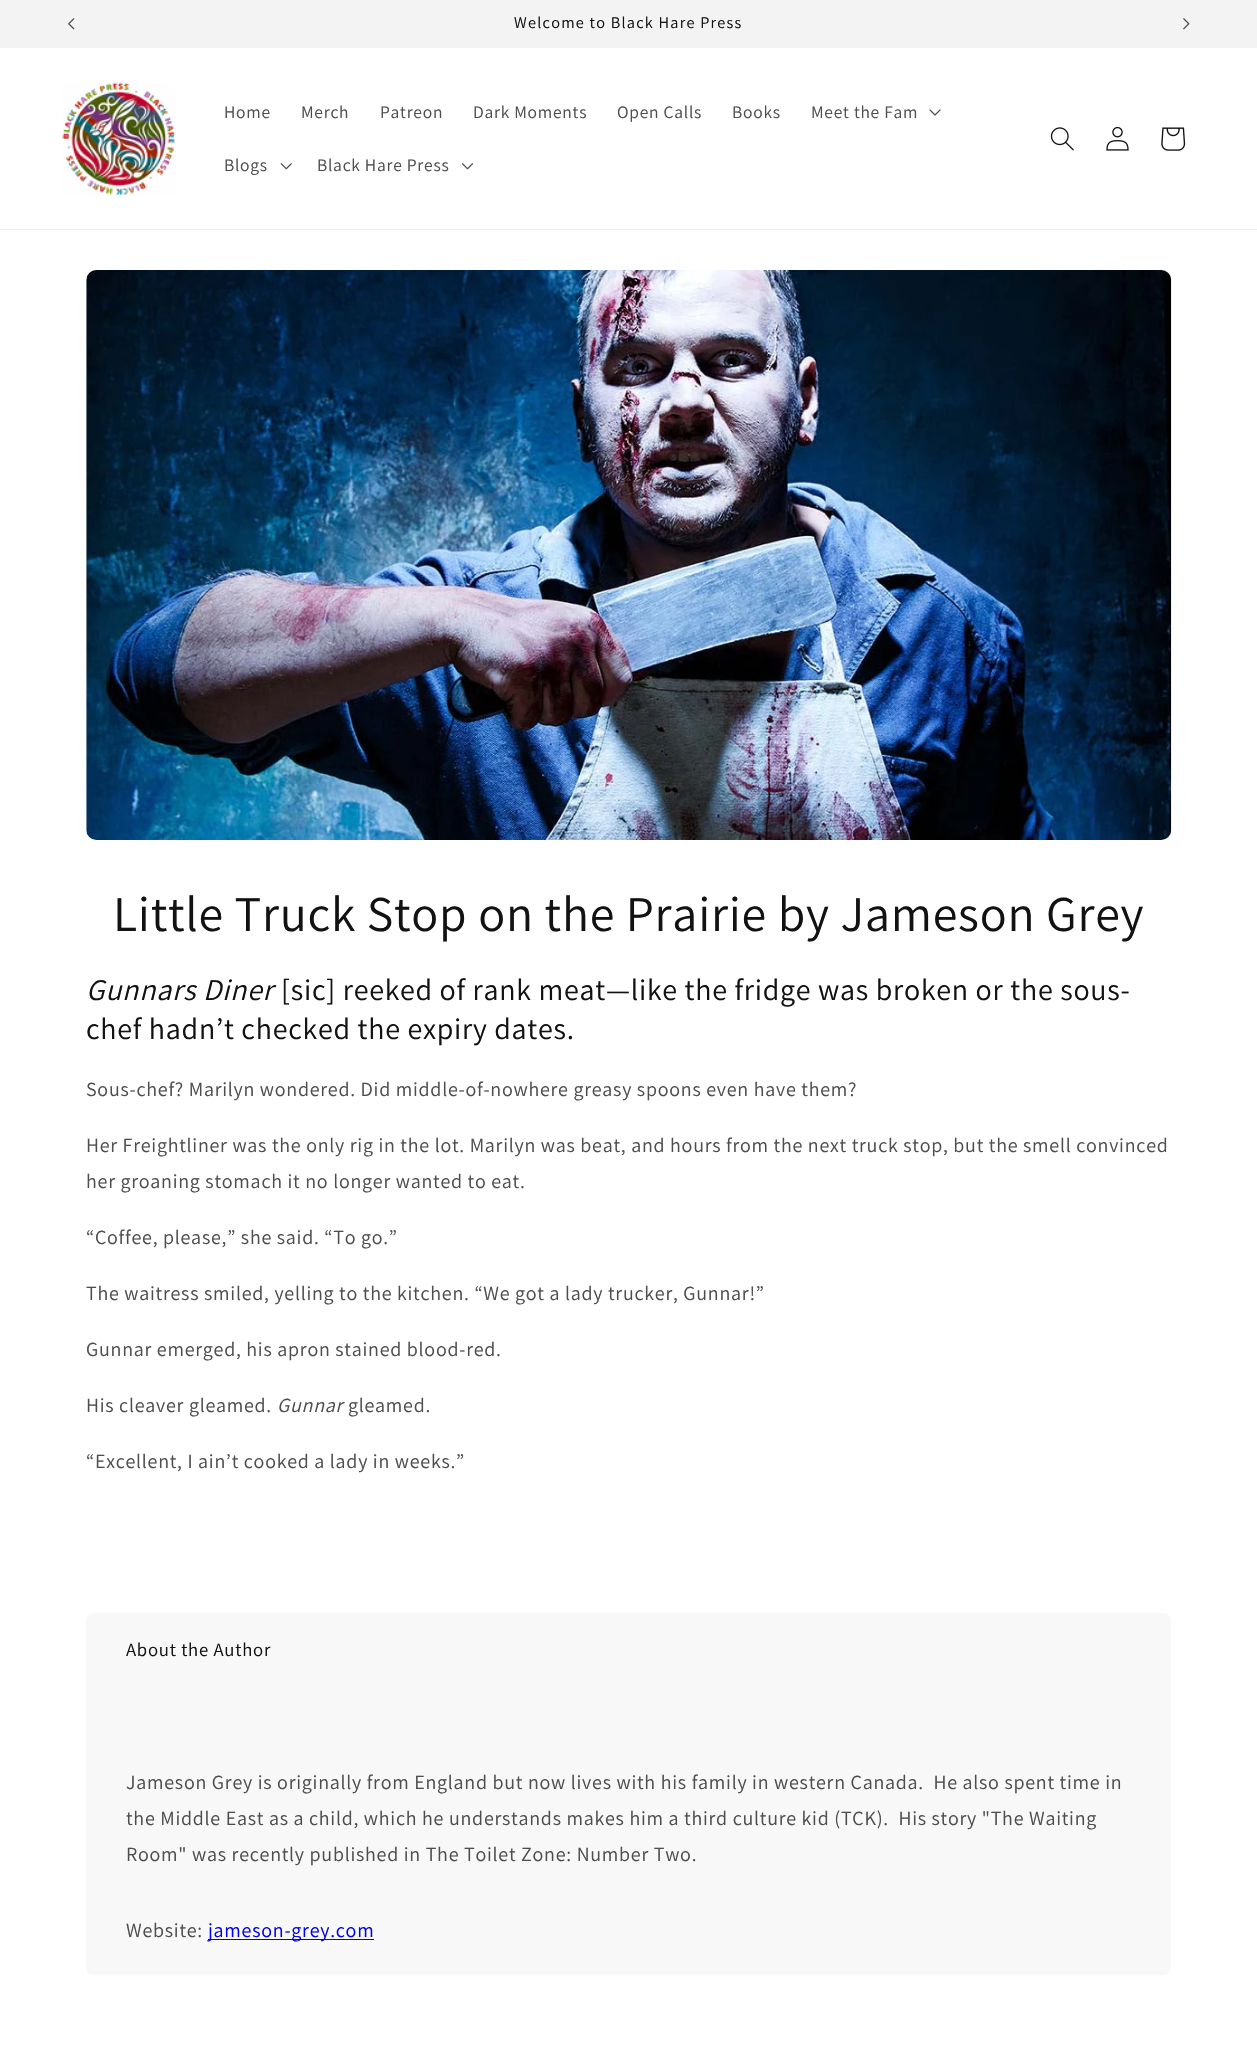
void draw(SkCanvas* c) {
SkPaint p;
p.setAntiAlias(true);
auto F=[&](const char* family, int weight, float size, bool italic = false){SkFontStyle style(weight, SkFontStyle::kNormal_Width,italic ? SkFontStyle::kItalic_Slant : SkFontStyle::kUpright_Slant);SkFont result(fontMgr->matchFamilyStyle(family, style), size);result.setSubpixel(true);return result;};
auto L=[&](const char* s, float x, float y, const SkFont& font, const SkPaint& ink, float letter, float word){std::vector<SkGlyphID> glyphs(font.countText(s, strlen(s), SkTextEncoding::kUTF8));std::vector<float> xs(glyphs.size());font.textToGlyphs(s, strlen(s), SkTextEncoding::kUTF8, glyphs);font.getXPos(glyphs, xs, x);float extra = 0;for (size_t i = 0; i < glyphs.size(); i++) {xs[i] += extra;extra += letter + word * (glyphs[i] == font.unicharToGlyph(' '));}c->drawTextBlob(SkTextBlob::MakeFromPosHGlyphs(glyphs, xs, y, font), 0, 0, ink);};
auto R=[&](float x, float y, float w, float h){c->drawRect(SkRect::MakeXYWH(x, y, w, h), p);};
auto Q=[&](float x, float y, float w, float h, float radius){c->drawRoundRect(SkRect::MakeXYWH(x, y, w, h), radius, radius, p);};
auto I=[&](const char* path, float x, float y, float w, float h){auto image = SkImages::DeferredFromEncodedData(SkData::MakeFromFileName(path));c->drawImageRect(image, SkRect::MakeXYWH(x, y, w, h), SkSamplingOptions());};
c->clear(0xffffffff);
p.setColor(0xfff3f3f3);
R(0,0,1257,48);
I("1.png",68,18,7,12);
auto f1 = F("Assistant",400,16.25);
p.setColor(0xff121212);
L("Welcome to Black Hare Press",514,28,f1,p,1.25,0);
I("2.png",1183,18,7,12);
p.setColor(0xffececec);
R(0,229,1257,1);
I("3.png",62,82,113,113);
auto f2 = F("Assistant",400,17.5);
p.setColor(0xff4d4d4d);
L("Home",224,118,f2,p,.75,0);
L("Merch",301,118,f2,p,.75,0);
L("Patreon",380,118,f2,p,.75,0);
L("Dark Moments",473,118,f2,p,.75,0);
L("Open Calls",617,118,f2,p,.75,0);
L("Books",732,118,f2,p,.75,0);
L("Meet the Fam",811,118,f2,p,.75,0);
I("4.png",929,109,12,7);
L("Blogs",224,171,f2,p,.75,0);
I("5.png",280,163,12,7);
L("Black Hare Press",317,171,f2,p,.75,0);
I("6.png",461,163,13,7);
I("7.png",1050,127,24,24);
I("8.png",1106,126,23,25);
I("9.png",1161,127,25,24);
I("10.png",86,270,1086,570);
auto f3 = F("Assistant",400,50);
p.setColor(0xff121212);
L("Little Truck Stop on the Prairie by Jameson Grey",113,931,f3,p,.75,0);
auto f4 = F("Assistant",400,30,true);
L("Gunnars Diner",86,1000,f4,p,.75,0);
auto f5 = F("Assistant",400,30);
L("[sic] reeked of rank meat—like the fridge was broken or the sous-",281,1000,f5,p,.75,0);
L("chef hadn’t checked the expiry dates.",86,1039,f5,p,.75,0);
auto f6 = F("Assistant",400,20);
p.setColor(0xff4d4d4d);
L("Sous-chef? Marilyn wondered. Did middle-of-nowhere greasy spoons even have them?",86,1096,f6,p,.75,0);
L("Her Freightliner was the only rig in the lot. Marilyn was beat, and hours from the next truck stop, but the smell convinced",86,1152,f6,p,.75,0);
L("her groaning stomach it no longer wanted to eat.",86,1188,f6,p,.75,0);
L("“Coffee, please,” she said. “To go.”",86,1244,f6,p,.75,0);
L("The waitress smiled, yelling to the kitchen. “We got a lady trucker, Gunnar!”",86,1300,f6,p,.75,0);
L("Gunnar emerged, his apron stained blood-red.",86,1356,f6,p,.75,0);
L("His cleaver gleamed.",86,1412,f6,p,.75,0);
auto f7 = F("Assistant",400,20,true);
L("Gunnar",277,1412,f7,p,.75,0);
L("gleamed.",348,1412,f6,p,.75,0);
L("“Excellent, I ain’t cooked a lady in weeks.”",86,1468,f6,p,.75,0);
p.setColor(0xfff8f8f8);
Q(86,1613,1085,362,8);
auto f8 = F("Assistant",400,18.75);
p.setColor(0xff121212);
L("About the Author",126,1656,f8,p,.75,0);
p.setColor(0xff4d4d4d);
L("Jameson Grey is originally from England but now lives with his family in western Canada.  He also spent time in",126,1789,f6,p,.75,0);
L("the Middle East as a child, which he understands makes him a third culture kid (TCK).  His story \"The Waiting",126,1825,f6,p,.75,0);
L("Room\" was recently published in The Toilet Zone: Number Two.",126,1861,f6,p,.75,0);
L("Website:",126,1937,f6,p,.75,0);
p.setColor(0xff0000ee);
R(208,1939,166,1);
L("jameson-grey.com",208,1937,f6,p,.75,0);
}
